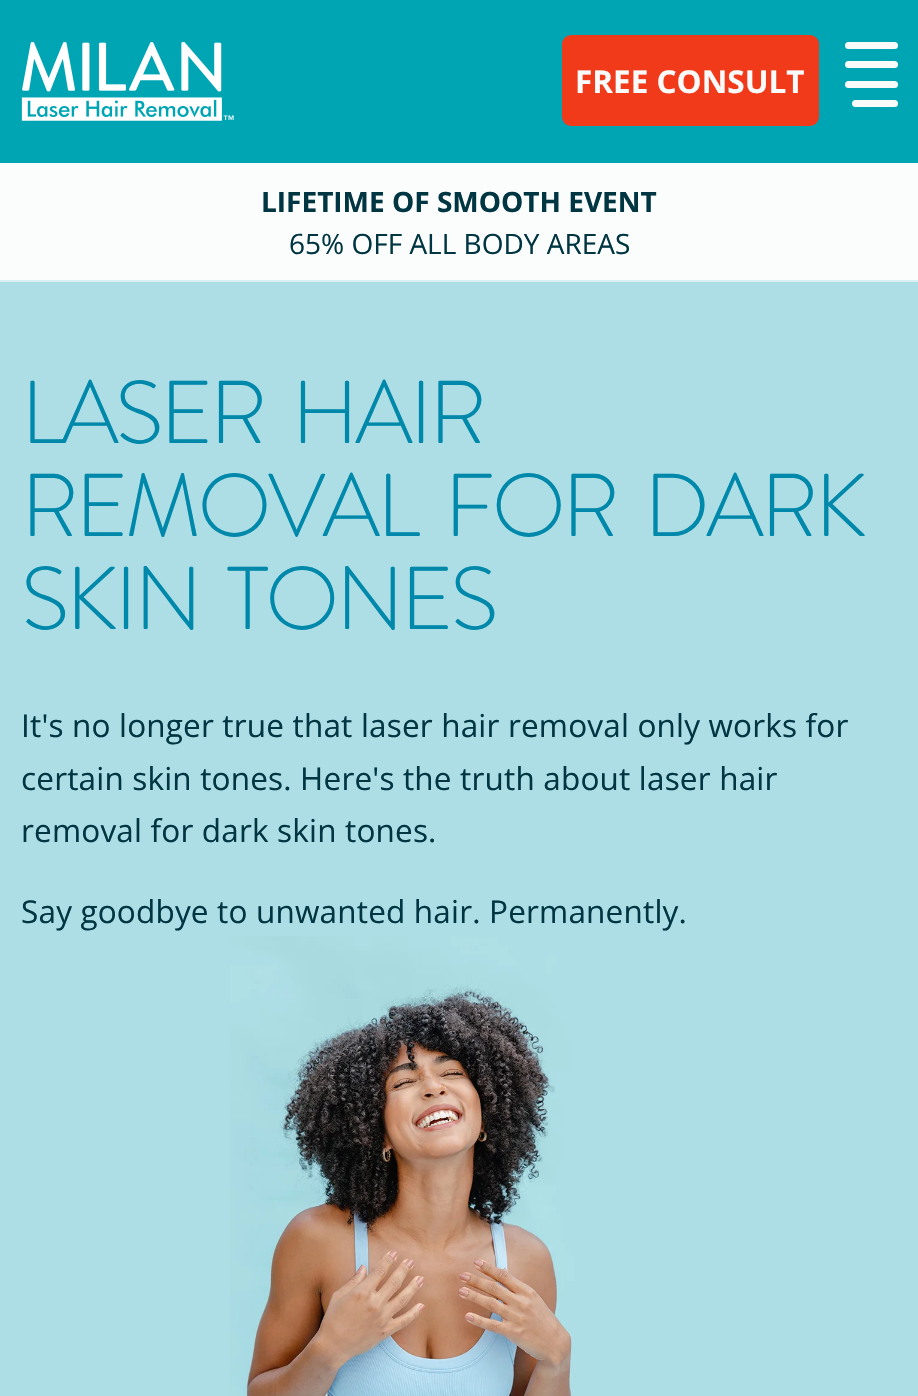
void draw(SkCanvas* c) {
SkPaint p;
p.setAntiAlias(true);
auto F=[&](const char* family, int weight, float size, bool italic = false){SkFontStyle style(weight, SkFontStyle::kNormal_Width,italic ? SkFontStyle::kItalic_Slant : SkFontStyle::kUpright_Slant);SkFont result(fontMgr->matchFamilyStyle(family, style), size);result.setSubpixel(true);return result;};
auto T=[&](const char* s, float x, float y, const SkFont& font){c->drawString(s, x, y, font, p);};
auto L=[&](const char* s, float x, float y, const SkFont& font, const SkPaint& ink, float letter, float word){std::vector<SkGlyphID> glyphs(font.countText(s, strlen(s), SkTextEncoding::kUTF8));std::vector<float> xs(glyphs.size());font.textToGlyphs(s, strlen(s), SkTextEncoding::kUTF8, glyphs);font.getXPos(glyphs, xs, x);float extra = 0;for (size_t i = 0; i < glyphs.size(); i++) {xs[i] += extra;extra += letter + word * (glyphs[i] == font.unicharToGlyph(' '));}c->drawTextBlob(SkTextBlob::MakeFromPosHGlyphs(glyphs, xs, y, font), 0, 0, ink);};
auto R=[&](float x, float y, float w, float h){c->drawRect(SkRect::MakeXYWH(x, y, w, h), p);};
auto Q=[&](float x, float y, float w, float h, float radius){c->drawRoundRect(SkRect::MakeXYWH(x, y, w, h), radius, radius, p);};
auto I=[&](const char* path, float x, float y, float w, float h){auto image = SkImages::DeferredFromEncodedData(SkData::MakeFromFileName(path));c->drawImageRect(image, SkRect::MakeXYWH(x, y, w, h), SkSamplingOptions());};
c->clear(0xfffbfdfd);
p.setColor(0xff00a5b4);
R(0,0,918,163);
I("1.png",21,42,213,79);
p.setColor(0xfff13a1a);
Q(562,35,257,91,9);
auto f1 = F("Open Sans",700,31.5);
p.setColor(0xfff9fbfb);
T("FREE CONSULT",575,93,f1);
Q(845,42,53,7,3.5);
Q(845,61,53,7,3.5);
Q(845,81,53,7,3.5);
Q(852,100,46,7,3.5);
auto f2 = F("Open Sans",700,28);
p.setColor(0xff003542);
T("LIFETIME OF SMOOTH EVENT",261,212,f2);
auto f3 = F("Open Sans",400,28);
T("65% OFF ALL BODY AREAS",289,254,f3);
p.setColor(0xffaddee5);
R(0,282,918,1114);
p.setColor(0xffdbeff2);
R(0,280,918,2);
auto f4 = F("Brandon Grotesque",300,88.75);
p.setColor(0xff0088ab);
L("LASER HAIR",21,443,f4,p,-3.5,12);
L("REMOVAL FOR DARK",21,536,f4,p,-3.5,12);
L("SKIN TONES",21,629,f4,p,-3.5,12);
auto f5 = F("Open Sans",400,31.5);
p.setColor(0xff003542);
L("It's no longer true that laser hair removal only works for",21,737,f5,p,.18,0);
L("certain skin tones. Here's the truth about laser hair",21,790,f5,p,.18,0);
L("removal for dark skin tones.",21,842,f5,p,.18,0);
L("Say goodbye to unwanted hair. Permanently.",21,923,f5,p,.18,0);
I("2.png",230,936,344,460);
}
